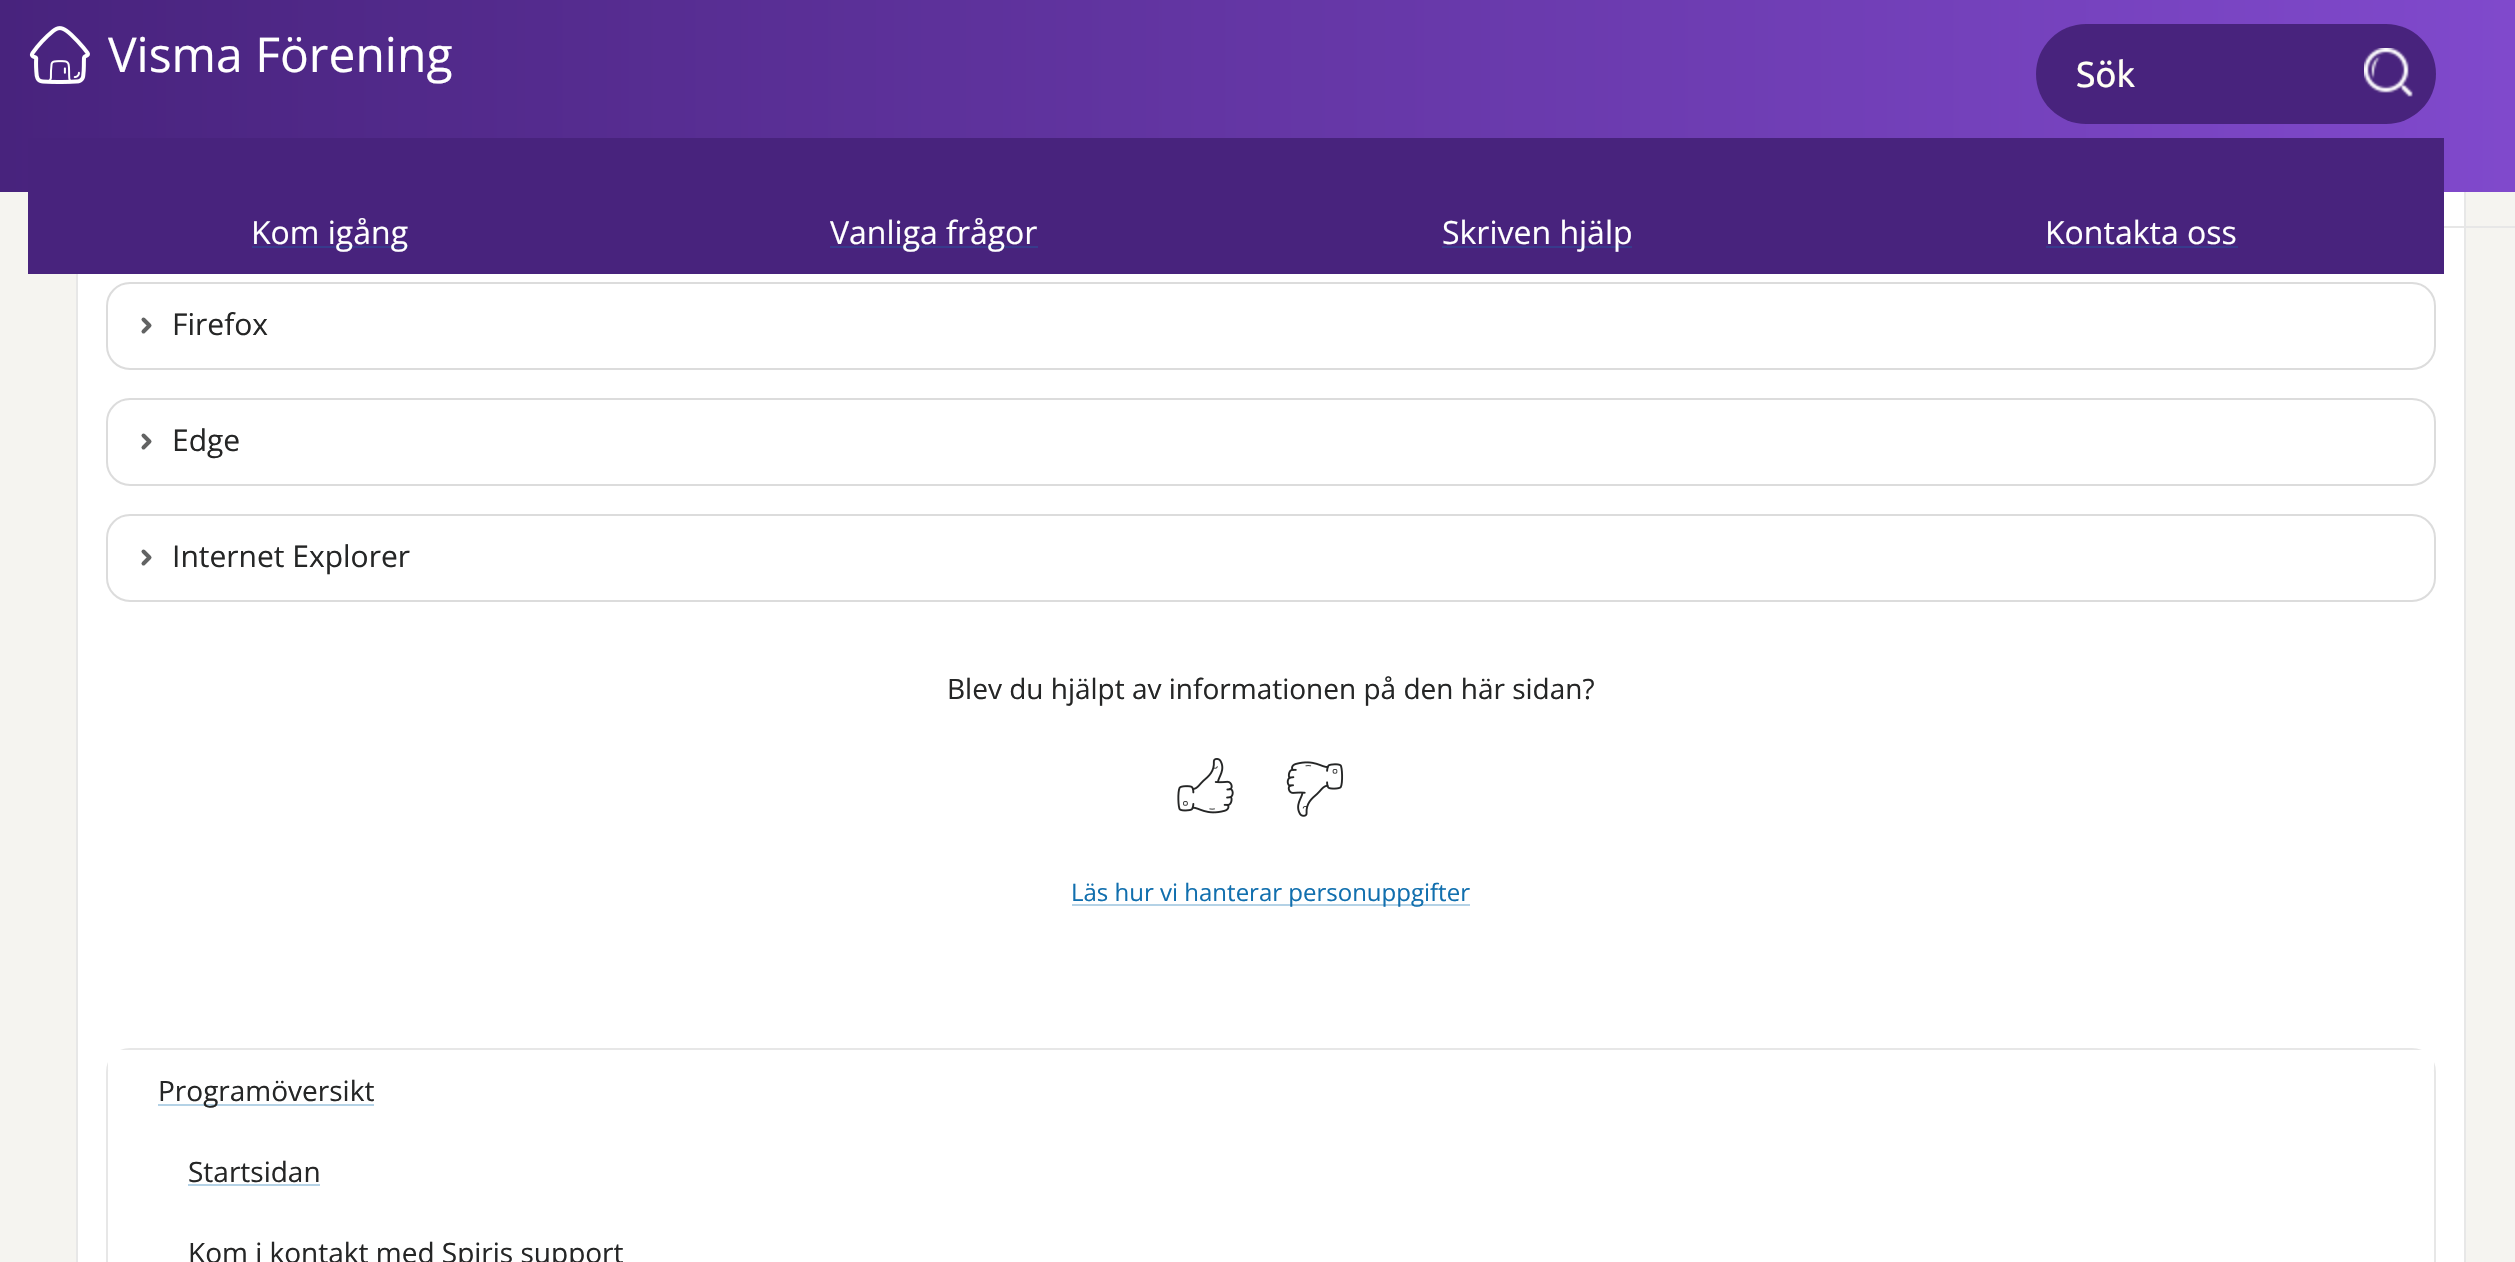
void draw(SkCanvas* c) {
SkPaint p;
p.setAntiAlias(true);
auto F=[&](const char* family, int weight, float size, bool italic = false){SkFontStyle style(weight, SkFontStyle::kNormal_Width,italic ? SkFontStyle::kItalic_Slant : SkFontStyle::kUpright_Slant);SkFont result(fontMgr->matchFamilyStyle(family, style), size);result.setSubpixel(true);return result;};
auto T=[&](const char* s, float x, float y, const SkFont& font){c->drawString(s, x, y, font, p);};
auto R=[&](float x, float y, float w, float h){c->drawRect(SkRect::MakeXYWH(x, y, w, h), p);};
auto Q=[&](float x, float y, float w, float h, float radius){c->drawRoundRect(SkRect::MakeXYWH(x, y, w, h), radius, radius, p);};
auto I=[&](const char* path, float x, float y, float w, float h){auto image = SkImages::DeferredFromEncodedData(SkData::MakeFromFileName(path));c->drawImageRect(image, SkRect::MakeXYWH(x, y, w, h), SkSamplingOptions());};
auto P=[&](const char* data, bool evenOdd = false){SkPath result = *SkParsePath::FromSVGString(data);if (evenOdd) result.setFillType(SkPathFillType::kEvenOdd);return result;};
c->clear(0xfff5f4f0);
p.setColor(0xffffffff);
R(78,192,2386,1070);
p.setColor(0xffe7e7e7);
c->drawPath(P("M100-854h2342c13 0 24 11 24 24v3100c0 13-11 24-24 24h-2342c-13 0-24-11-24-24v-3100c0-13 11-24 24-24zm0 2h2342c12 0 22 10 22 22v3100c0 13-10 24-22 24h-2342c-12 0-22-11-22-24v-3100c0-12 10-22 22-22z",true),p);
{
const SkColor colors[] = {0xff48237d,0xff8049cc};
const float stops[] = {0,1};
const SkPoint ends[] = {{0,96}, {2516,96}};
p.setShader(SkGradientShader::MakeLinear(ends, colors, stops, 2, SkTileMode::kClamp));
p.setAlpha(255);
}
R(0,0,2515,192);
p.setShader(nullptr);
p.setColor(0xffe7e7e7);
R(2444,226,71,2);
I("1.png",29,26,61,58);
auto f1 = F("Open Sans",400,48);
p.setColor(0xffffffff);
T("Visma Förening",108,72,f1);
p.setColor(0xff48237d);
R(28,138,2416,136);
p.setColor(0xff373b8c);
R(252,246,156,2);
auto f2 = F("Open Sans",400,32);
p.setColor(0xffffffff);
T("Kom igång",251,244,f2);
p.setColor(0xff373b8c);
R(830,246,208,2);
p.setColor(0xffffffff);
T("Vanliga frågor",830,244,f2);
p.setColor(0xff373b8c);
R(1442,246,190,2);
p.setColor(0xffffffff);
T("Skriven hjälp",1442,244,f2);
T("Kontakta oss",2045,244,f2);
p.setColor(0xff373b8c);
R(2046,246,192,2);
p.setColor(0xff48237d);
Q(2036,24,400,100,50);
auto f3 = F("Ubuntu",400,36);
p.setColor(0xfffffff5);
T("Sök",2076,87,f3);
I("2.png",2364,48,49,49);
p.setStroke(true);
p.setStrokeWidth(2);
p.setColor(0xffdcdcdc);
c->drawRoundRect(SkRect::MakeXYWH(107,283,2328,86),23,23,p);
p.setStrokeWidth(4);
p.setStrokeCap(SkPaint::kRound_Cap);
p.setStrokeJoin(SkPaint::kRound_Join);
p.setColor(0xff626363);
c->drawPath(P("M143.5 331.5l6-6l-6-6"),p);
auto f4 = F("Open Sans",400,30);
p.setStroke(false);
p.setColor(0xff252626);
T("Firefox",172,335,f4);
p.setStroke(true);
p.setStrokeWidth(2);
p.setStrokeCap(SkPaint::kButt_Cap);
p.setStrokeJoin(SkPaint::kMiter_Join);
p.setColor(0xffdcdcdc);
c->drawRoundRect(SkRect::MakeXYWH(107,399,2328,86),23,23,p);
p.setStrokeWidth(4);
p.setStrokeCap(SkPaint::kRound_Cap);
p.setStrokeJoin(SkPaint::kRound_Join);
p.setColor(0xff626363);
c->drawPath(P("M143.5 447.5l6-6l-6-6"),p);
p.setStroke(false);
p.setColor(0xff252626);
T("Edge",172,451,f4);
p.setStroke(true);
p.setStrokeWidth(2);
p.setStrokeCap(SkPaint::kButt_Cap);
p.setStrokeJoin(SkPaint::kMiter_Join);
p.setColor(0xffdcdcdc);
c->drawRoundRect(SkRect::MakeXYWH(107,515,2328,86),23,23,p);
p.setStrokeWidth(4);
p.setStrokeCap(SkPaint::kRound_Cap);
p.setStrokeJoin(SkPaint::kRound_Join);
p.setColor(0xff626363);
c->drawPath(P("M143.5 563.5l6-6l-6-6"),p);
p.setStroke(false);
p.setColor(0xff252626);
T("Internet Explorer",172,567,f4);
auto f5 = F("Open Sans",400,28);
T("Blev du hjälpt av informationen på den här sidan?",947,699,f5);
I("3.png",1177,758,57,56);
I("4.png",1286,761,58,56);
p.setColor(0xffb4d2e6);
R(1072,904,398,2);
auto f6 = F("Open Sans",400,24);
p.setColor(0xff116fae);
T("Läs hur vi hanterar personuppgifter",1071,901,f6);
p.setStroke(true);
p.setStrokeWidth(2);
p.setStrokeCap(SkPaint::kButt_Cap);
p.setStrokeJoin(SkPaint::kMiter_Join);
p.setColor(0xffe7e7e7);
c->drawRoundRect(SkRect::MakeXYWH(107,1049,2328,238),23,23,p);
p.setStroke(false);
p.setColor(0xffffffff);
R(108,1050,2326,20);
p.setColor(0xffb4d2e6);
R(158,1104,216,2);
p.setColor(0xff252626);
T("Programöversikt",158,1101,f5);
T("Startsidan",188,1182,f5);
p.setColor(0xffb4d2e6);
R(188,1184,132,2);
p.setColor(0xff252626);
T("Kom i kontakt med Spiris support",188,1263,f5);
}
